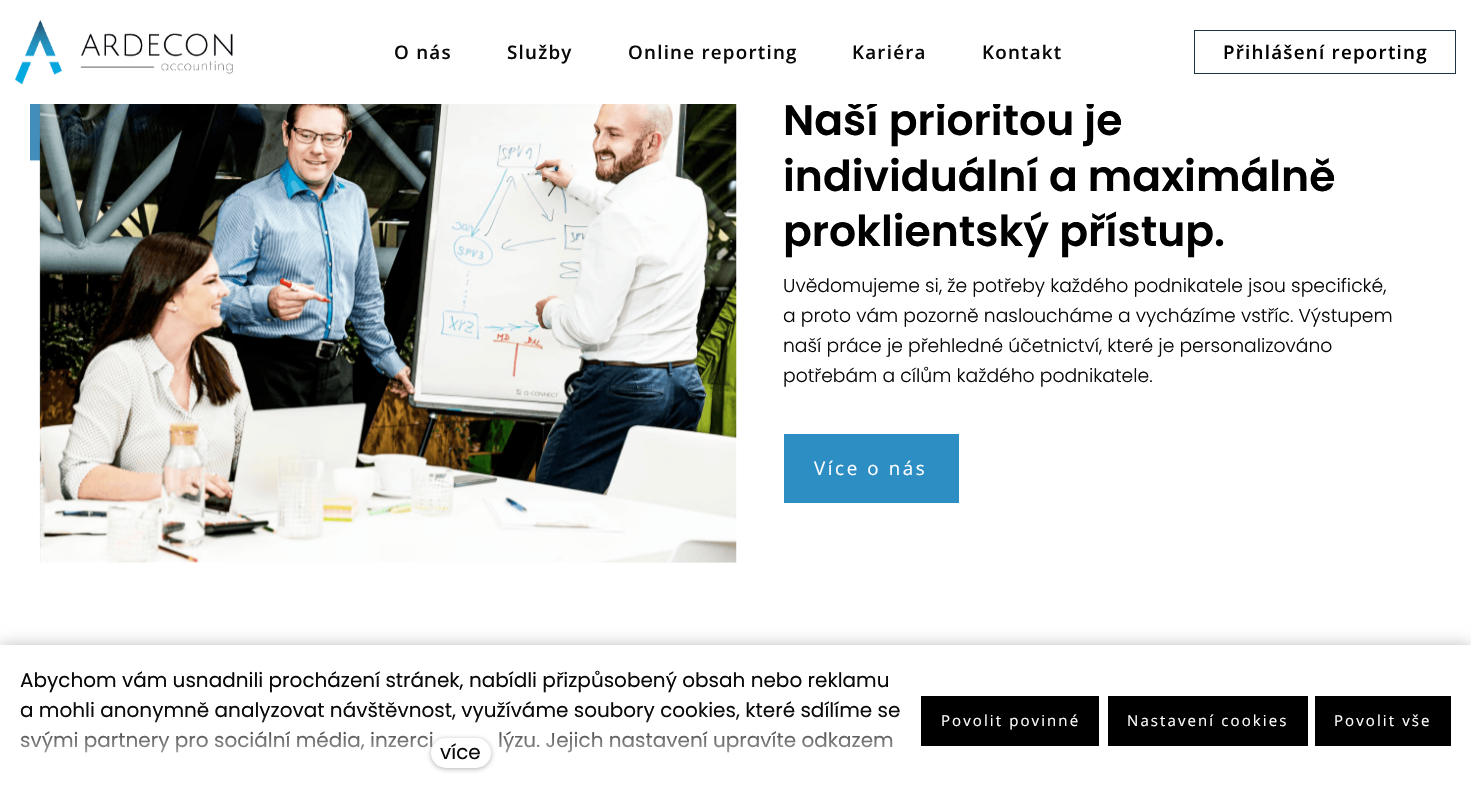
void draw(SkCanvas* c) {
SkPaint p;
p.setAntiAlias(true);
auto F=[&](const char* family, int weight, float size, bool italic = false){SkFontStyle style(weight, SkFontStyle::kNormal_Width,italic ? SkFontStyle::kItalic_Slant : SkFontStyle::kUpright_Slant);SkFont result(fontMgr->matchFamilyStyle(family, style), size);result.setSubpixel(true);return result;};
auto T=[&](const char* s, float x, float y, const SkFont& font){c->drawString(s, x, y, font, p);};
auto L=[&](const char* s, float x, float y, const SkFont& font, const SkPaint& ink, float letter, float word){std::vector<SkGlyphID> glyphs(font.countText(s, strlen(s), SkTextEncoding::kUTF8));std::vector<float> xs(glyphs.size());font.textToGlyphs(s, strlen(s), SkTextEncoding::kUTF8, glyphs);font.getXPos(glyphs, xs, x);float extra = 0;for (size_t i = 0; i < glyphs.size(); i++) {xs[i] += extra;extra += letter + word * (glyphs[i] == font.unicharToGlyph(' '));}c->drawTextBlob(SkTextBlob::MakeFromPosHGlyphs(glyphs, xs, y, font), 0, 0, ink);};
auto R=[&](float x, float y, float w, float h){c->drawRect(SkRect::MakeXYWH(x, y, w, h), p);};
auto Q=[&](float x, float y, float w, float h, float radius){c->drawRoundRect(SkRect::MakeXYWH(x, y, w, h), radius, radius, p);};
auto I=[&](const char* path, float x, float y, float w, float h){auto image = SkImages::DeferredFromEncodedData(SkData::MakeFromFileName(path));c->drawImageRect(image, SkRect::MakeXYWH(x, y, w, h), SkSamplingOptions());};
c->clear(0xffffffff);
auto f1 = F("Poppins",600,42.5);
p.setColor(0xff000000);
T("Naší prioritou je",783,135,f1);
p.setColor(0xffffffff);
R(848,100,246,4);
I("1.png",15,19,218,66);
auto f2 = F("Open Sans",600,18.75);
p.setColor(0xff090909);
L("O nás",394,59,f2,p,1.25,0);
L("Služby",507,59,f2,p,1.25,0);
L("Online reporting",628,59,f2,p,1.25,0);
L("Kariéra",852,59,f2,p,1.25,0);
L("Kontakt",982,59,f2,p,1.25,0);
p.setStroke(true);
p.setStrokeWidth(1);
p.setColor(0xff1c3444);
c->drawRect(SkRect::MakeXYWH(1194.5,30.5,261,43),p);
p.setStroke(false);
p.setColor(0xff000000);
L("Přihlášení reporting",1223,59,f2,p,1.25,0);
I("2.png",30,104,707,459);
T("individuální a maximálně",783,191,f1);
T("proklientský přístup.",783,246,f1);
auto f3 = F("Poppins",300,18.75);
p.setColor(0xff090909);
T("Uvědomujeme si, že potřeby každého podnikatele jsou specifické,",783,292,f3);
T("a proto vám pozorně nasloucháme a vycházíme vstříc. Výstupem",783,322,f3);
T("naší práce je přehledné účetnictví, které je personalizováno",783,352,f3);
T("potřebám a cílům každého podnikatele.",783,382,f3);
p.setColor(0xff2d8ec3);
R(784,434,175,69);
auto f4 = F("Open Sans",400,18.75);
p.setColor(0xffffffff);
L("Více o nás",814,475,f4,p,2.6,0);
p.setColor(0x40000000);
p.setMaskFilter(SkMaskFilter::MakeBlur(kNormal_SkBlurStyle, 7.5));
c->drawRect(SkRect::MakeXYWH(0,645,1471,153),p);
p.setMaskFilter(nullptr);
p.setColor(0xffffffff);
R(0,645,1471,152);
auto f5 = F("Poppins",400,20);
p.setColor(0xff090909);
T("Abychom vám usnadnili procházení stránek, nabídli přizpůsobený obsah nebo reklamu",20,687,f5);
T("a mohli anonymně analyzovat návštěvnost, využíváme soubory cookies, které sdílíme se",20,717,f5);
T("svými partnery pro sociální média, inzerci",20,747,f5);
T("lýzu. Jejich nastavení upravíte odkazem",498,747,f5);
{
const SkColor colors[] = {0xffffffff,0x00ffffff};
const float stops[] = {0,1};
const SkPoint ends[] = {{461,778}, {461,714}};
p.setShader(SkGradientShader::MakeLinear(ends, colors, stops, 2, SkTileMode::kClamp));
p.setAlpha(255);
}
R(21,715,877,38);
p.setShader(nullptr);
p.setColor(0x4d000000);
p.setMaskFilter(SkMaskFilter::MakeBlur(kNormal_SkBlurStyle, 2.5));
c->drawRoundRect(SkRect::MakeXYWH(431,739,60,30),15,15,p);
p.setMaskFilter(nullptr);
p.setColor(0xffffffff);
Q(431,738,60,30,15);
p.setColor(0xff090909);
T("více",440,759,f5);
p.setColor(0xff000000);
R(921,696,178,50);
auto f6 = F("Open Sans",400,15);
p.setColor(0xffffffff);
L("Povolit povinné",941,726,f6,p,2.1,0);
p.setColor(0xff000000);
R(1108,696,200,50);
p.setColor(0xffffffff);
L("Nastavení cookies",1127,726,f6,p,2.1,0);
p.setColor(0xff000000);
R(1315,696,136,50);
p.setColor(0xffffffff);
L("Povolit vše",1334,726,f6,p,2.1,0);
}
